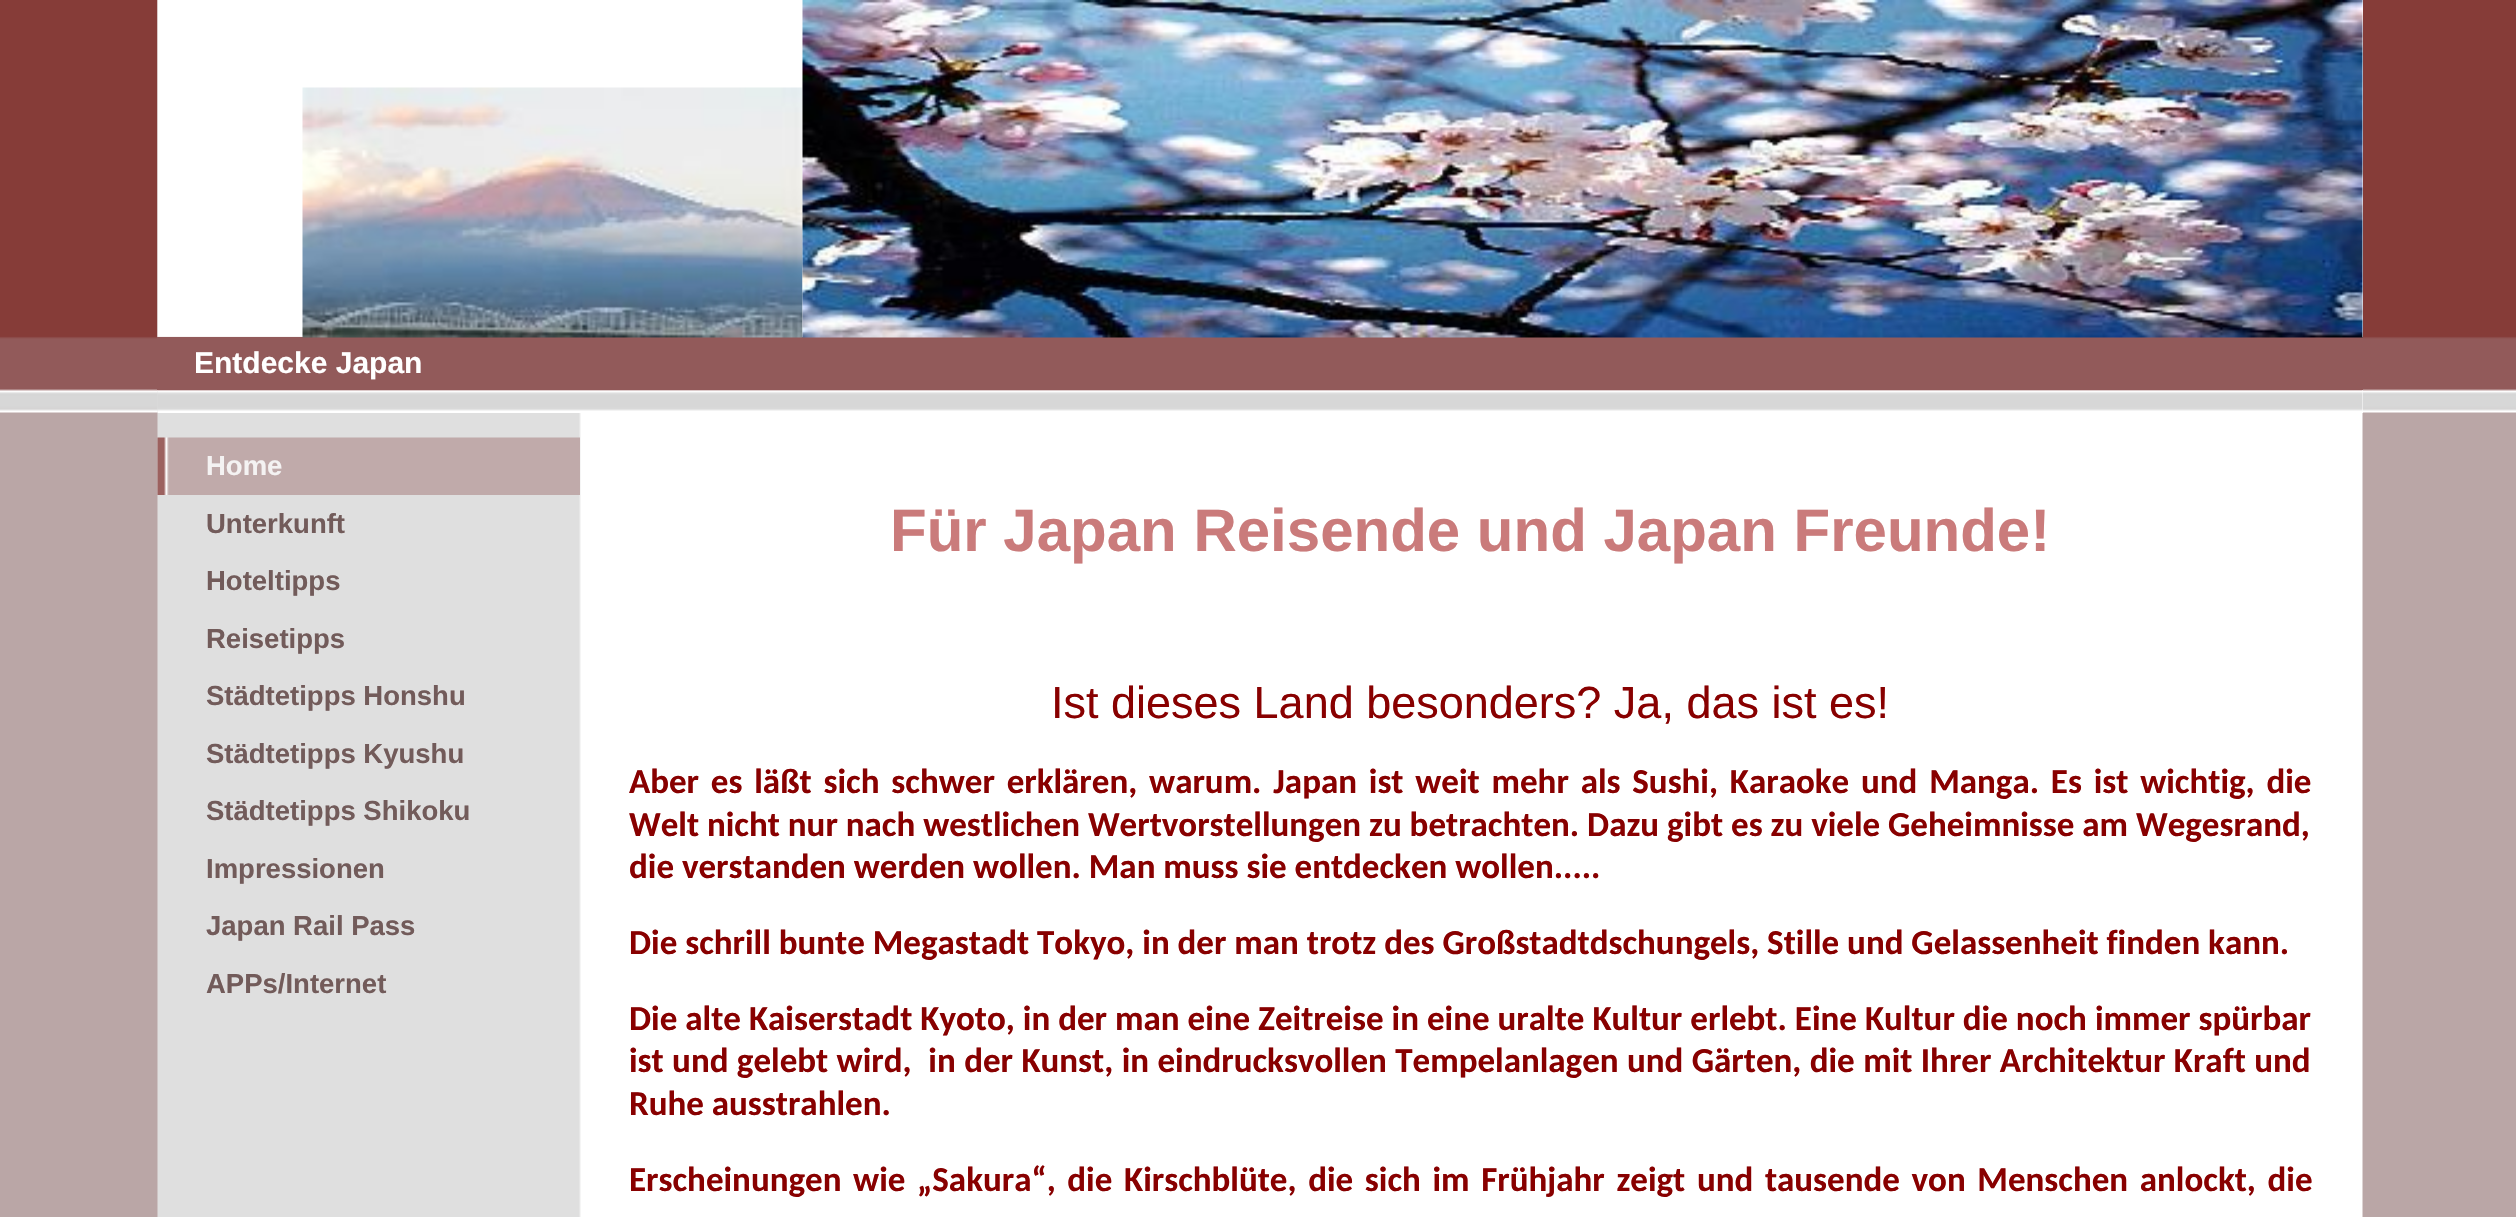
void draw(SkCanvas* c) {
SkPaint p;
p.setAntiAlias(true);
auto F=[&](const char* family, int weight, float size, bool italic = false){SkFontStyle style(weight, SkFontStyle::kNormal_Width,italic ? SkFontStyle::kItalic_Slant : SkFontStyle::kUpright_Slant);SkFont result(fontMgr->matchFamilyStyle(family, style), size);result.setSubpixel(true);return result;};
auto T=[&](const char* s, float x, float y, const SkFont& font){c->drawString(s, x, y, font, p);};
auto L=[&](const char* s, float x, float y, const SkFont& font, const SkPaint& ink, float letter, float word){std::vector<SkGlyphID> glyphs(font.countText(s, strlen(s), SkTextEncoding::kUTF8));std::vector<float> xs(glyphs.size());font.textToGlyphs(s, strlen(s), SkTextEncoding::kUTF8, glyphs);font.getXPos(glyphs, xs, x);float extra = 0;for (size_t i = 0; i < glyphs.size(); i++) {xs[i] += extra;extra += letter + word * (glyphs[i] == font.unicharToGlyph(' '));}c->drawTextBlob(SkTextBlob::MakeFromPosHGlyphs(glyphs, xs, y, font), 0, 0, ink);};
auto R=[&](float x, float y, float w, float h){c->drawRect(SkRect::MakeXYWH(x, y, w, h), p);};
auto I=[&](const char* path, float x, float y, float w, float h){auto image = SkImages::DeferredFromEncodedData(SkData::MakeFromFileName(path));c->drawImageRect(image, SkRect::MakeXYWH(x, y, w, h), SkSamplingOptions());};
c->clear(0xffbaa6a6);
I("1.png",0,0,2516,413);
I("2.png",157,0,2206,1217);
p.setColor(0xffffffff);
R(158,0,2205,413);
I("3.png",157,0,2206,413);
p.setColor(0xff925a5a);
R(157,337,2206,53);
I("4.png",302,87,501,251);
I("5.png",802,0,1561,338);
auto f1 = F("Liberation Sans",700,30);
p.setColor(0xffffffff);
T("Entdecke Japan",194,373,f1);
I("6.png",157,437,423,58);
auto f2 = F("Liberation Sans",700,27.5);
p.setColor(0xfff4f2f2);
T("Home",206,475,f2);
p.setColor(0xff725b5a);
T("Unterkunft",206,533,f2);
T("Hoteltipps",206,590,f2);
T("Reisetipps",206,648,f2);
T("Städtetipps Honshu",206,705,f2);
T("Städtetipps Kyushu",206,763,f2);
T("Städtetipps Shikoku",206,820,f2);
T("Impressionen",206,878,f2);
T("Japan Rail Pass",206,935,f2);
T("APPs/Internet",206,993,f2);
auto f3 = F("Liberation Sans",700,60);
p.setColor(0xffca7b7b);
T("Für Japan Reisende und Japan Freunde!",890,551,f3);
auto f4 = F("Liberation Sans",400,45);
p.setColor(0xff880000);
T("Ist dieses Land besonders? Ja, das ist es!",1051,718,f4);
auto f5 = F("Carlito",700,35);
L("Aber es läßt sich schwer erklären, warum. Japan ist weit mehr als Sushi, Karaoke und Manga. Es ist wichtig, die",629,793,f5,p,0,3.9);
T("Welt nicht nur nach westlichen Wertvorstellungen zu betrachten. Dazu gibt es zu viele Geheimnisse am Wegesrand,",629,836,f5);
T("die verstanden werden wollen. Man muss sie entdecken wollen.....",629,878,f5);
T("Die schrill bunte Megastadt Tokyo, in der man trotz des Großstadtdschungels, Stille und Gelassenheit finden kann.",629,954,f5);
L("Die alte Kaiserstadt Kyoto, in der man eine Zeitreise in eine uralte Kultur erlebt. Eine Kultur die noch immer spürbar",629,1030,f5,p,0,.1);
L("ist und gelebt wird,  in der Kunst, in eindrucksvollen Tempelanlagen und Gärten, die mit Ihrer Architektur Kraft und",629,1072,f5,p,0,.5);
T("Ruhe ausstrahlen.",629,1115,f5);
L("Erscheinungen wie „Sakura“, die Kirschblüte, die sich im Frühjahr zeigt und tausende von Menschen anlockt, die",629,1191,f5,p,0,3.75);
}
